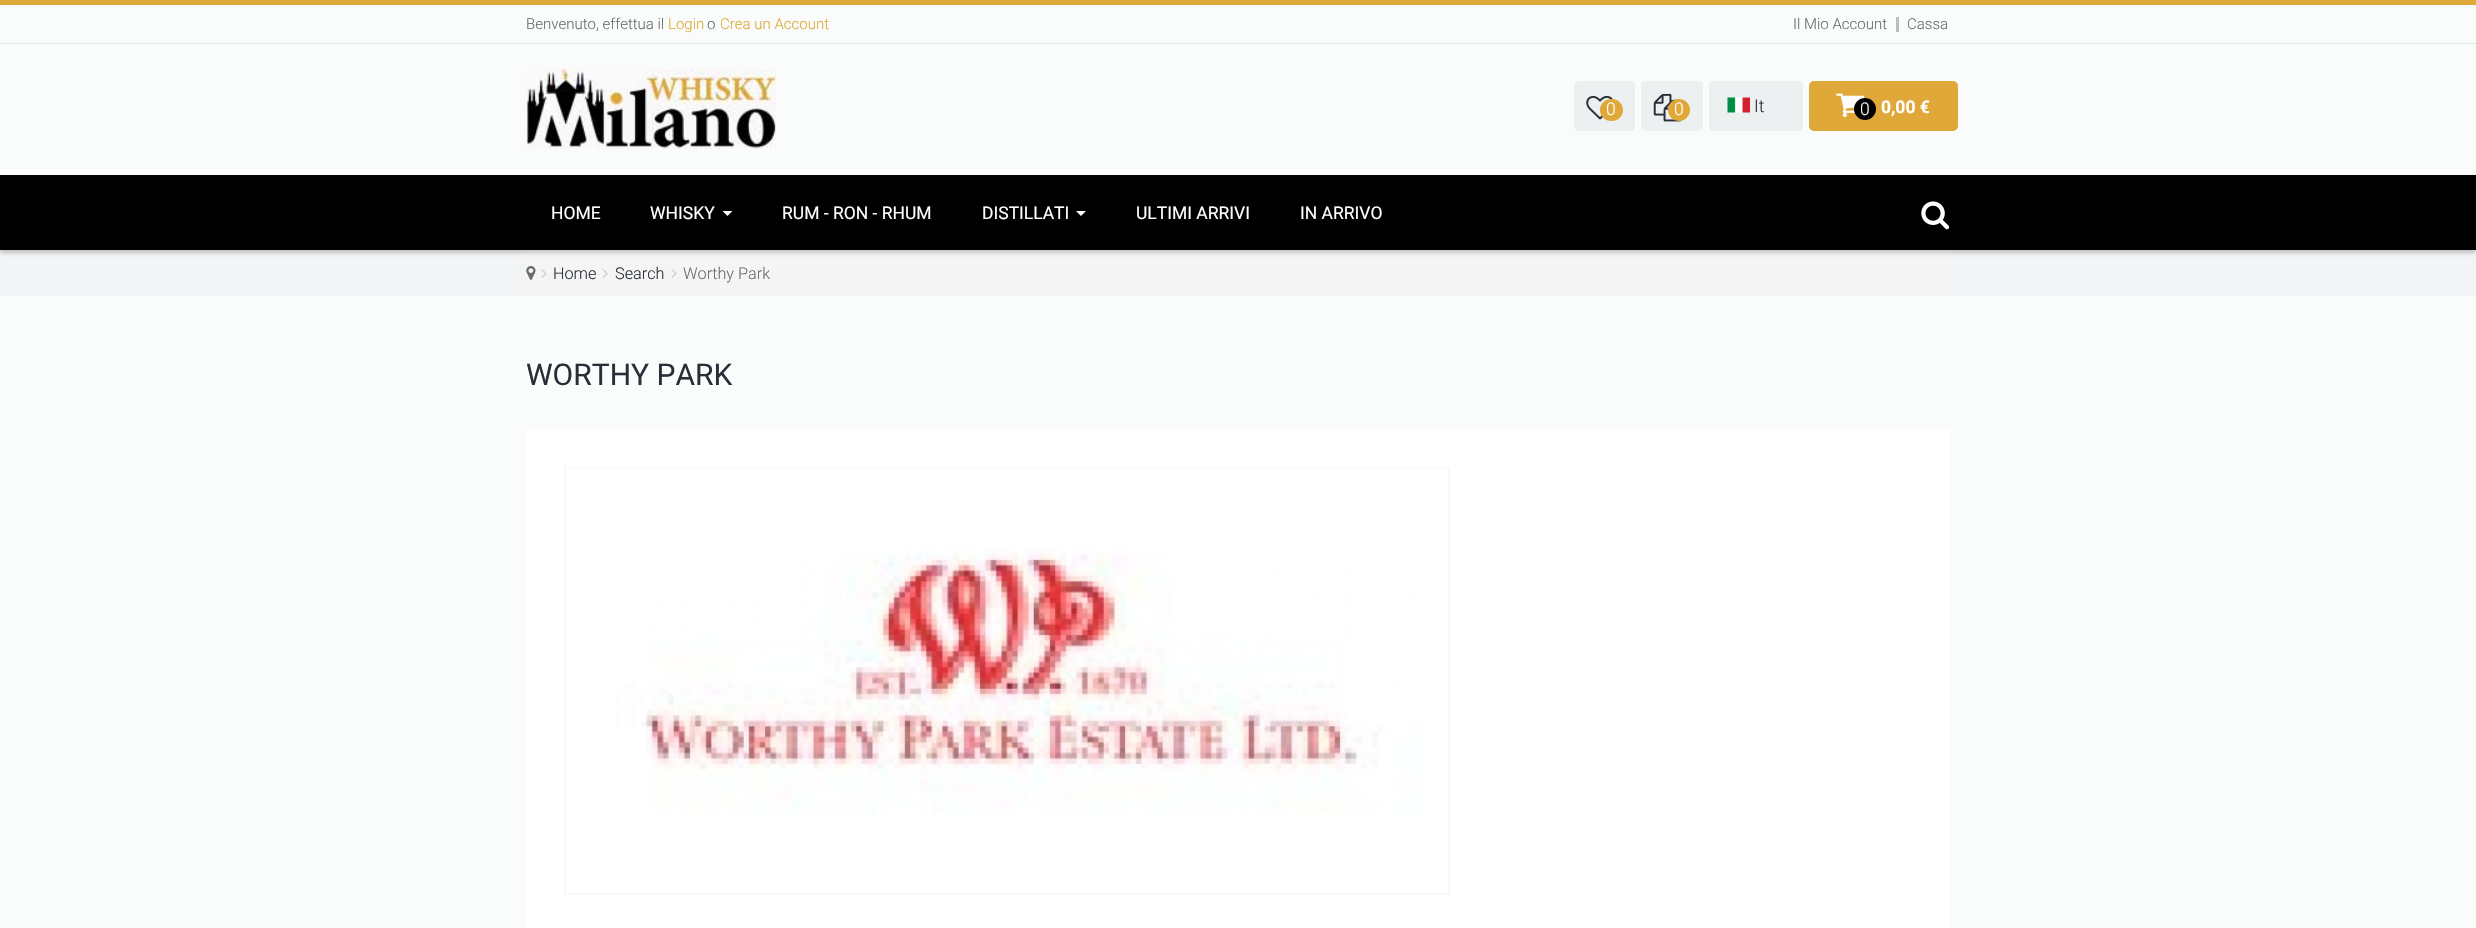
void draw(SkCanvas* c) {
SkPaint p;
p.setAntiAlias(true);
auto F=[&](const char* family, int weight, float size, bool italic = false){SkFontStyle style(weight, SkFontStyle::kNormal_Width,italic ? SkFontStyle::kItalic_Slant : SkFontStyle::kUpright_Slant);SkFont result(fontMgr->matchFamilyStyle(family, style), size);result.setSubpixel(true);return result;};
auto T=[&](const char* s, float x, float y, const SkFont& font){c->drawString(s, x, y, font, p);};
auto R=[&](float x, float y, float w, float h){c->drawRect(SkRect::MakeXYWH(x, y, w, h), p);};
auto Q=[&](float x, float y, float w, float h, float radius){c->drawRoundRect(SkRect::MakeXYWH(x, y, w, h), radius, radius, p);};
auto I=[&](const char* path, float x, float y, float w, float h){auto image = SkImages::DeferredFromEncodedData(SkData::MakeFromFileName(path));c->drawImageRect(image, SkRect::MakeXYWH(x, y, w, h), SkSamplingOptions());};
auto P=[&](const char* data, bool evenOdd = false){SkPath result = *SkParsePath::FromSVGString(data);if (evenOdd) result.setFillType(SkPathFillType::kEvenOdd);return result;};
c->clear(0xfffafbfb);
p.setColor(0xffe0a839);
R(0,0,2476,5);
p.setColor(0xffe2e6e7);
R(0,43,2476,1);
auto f1 = F("Roboto",300,15);
p.setColor(0xff696e6e);
T("Benvenuto, effettua il",526,29,f1);
p.setColor(0xffe0a839);
T("Login",668,29,f1);
p.setColor(0xff696e6e);
T("o",707,29,f1);
p.setColor(0xffe0a839);
T("Crea un Account",720,29,f1);
p.setColor(0xff696e6e);
T("Il Mio Account",1793,29,f1);
p.setColor(0xffbbbebe);
R(1896,17,3,15);
p.setColor(0xff696e6e);
T("Cassa",1907,29,f1);
I("1.png",526,68,251,81);
p.setColor(0xffecf0f1);
Q(1574,81,61,50,5);
I("2.png",1586,95,28,25);
p.setColor(0xffe0a839);
Q(1600,99,23,22,11);
auto f2 = F("Roboto",300,17.5);
p.setColor(0xffffffff);
T("0",1606,115,f2);
p.setColor(0xffecf0f1);
Q(1641,81,62,50,5);
I("3.png",1653,93,29,29);
p.setColor(0xffe0a839);
c->drawCircle(1679,110,11,p);
p.setColor(0xffffffff);
T("0",1674,115,f2);
p.setColor(0xffecf0f1);
Q(1709,81,94,50,5);
I("4.png",1727,97,23,16);
p.setColor(0xff292f38);
T("It",1754,112,f2);
p.setColor(0xffe0a839);
Q(1809,81,149,50,5);
I("5.png",1836,93,29,25);
auto f3 = F("Roboto",700,17.5);
p.setColor(0xffffffff);
T("0,00 €",1881,113,f3);
p.setColor(0xff000000);
c->drawCircle(1865,109,11,p);
p.setColor(0xffffffff);
T("0",1860,115,f2);
p.setColor(0xfff2f4f5);
R(0,250,2476,46);
p.setColor(0xfff5f5f5);
R(526,250,1425,46);
p.setColor(0x33000000);
p.setMaskFilter(SkMaskFilter::MakeBlur(kNormal_SkBlurStyle, 2));
c->drawRect(SkRect::MakeXYWH(0,178,2476,75),p);
p.setMaskFilter(nullptr);
p.setColor(0xff000000);
R(0,175,2476,75);
auto f4 = F("Roboto",400,17.5);
p.setColor(0xffffffff);
T("HOME",551,219,f4);
T("WHISKY",650,219,f4);
c->drawPath(P("M722.5 211h10l-5 5z"),p);
T("RUM - RON - RHUM",782,219,f4);
T("DISTILLATI",982,219,f4);
c->drawPath(P("M1076 211h10l-5 5z"),p);
T("ULTIMI ARRIVI",1136,219,f4);
T("IN ARRIVO",1300,219,f4);
I("6.png",1921,201,29,29);
I("7.png",526,266,10,14);
I("8.png",541,269,6,9);
auto f5 = F("Roboto",300,16.25);
p.setColor(0xff292f38);
T("Home",553,279,f5);
I("9.png",602,269,6,9);
T("Search",615,279,f5);
I("8.png",671,269,6,9);
p.setColor(0xff696e6e);
T("Worthy Park",683,279,f5);
auto f6 = F("Roboto",400,30);
p.setColor(0xff292f38);
T("WORTHY PARK",526,385,f6);
p.setColor(0xffffffff);
R(526,429,1425,499);
p.setStroke(true);
p.setStrokeWidth(1);
p.setColor(0xfff5f7f8);
c->drawRect(SkRect::MakeXYWH(564.5,466.5,885,428),p);
c->drawRect(SkRect::MakeXYWH(565.5,468.5,883,425),p);
I("10.png",615,549,811,267);
}
